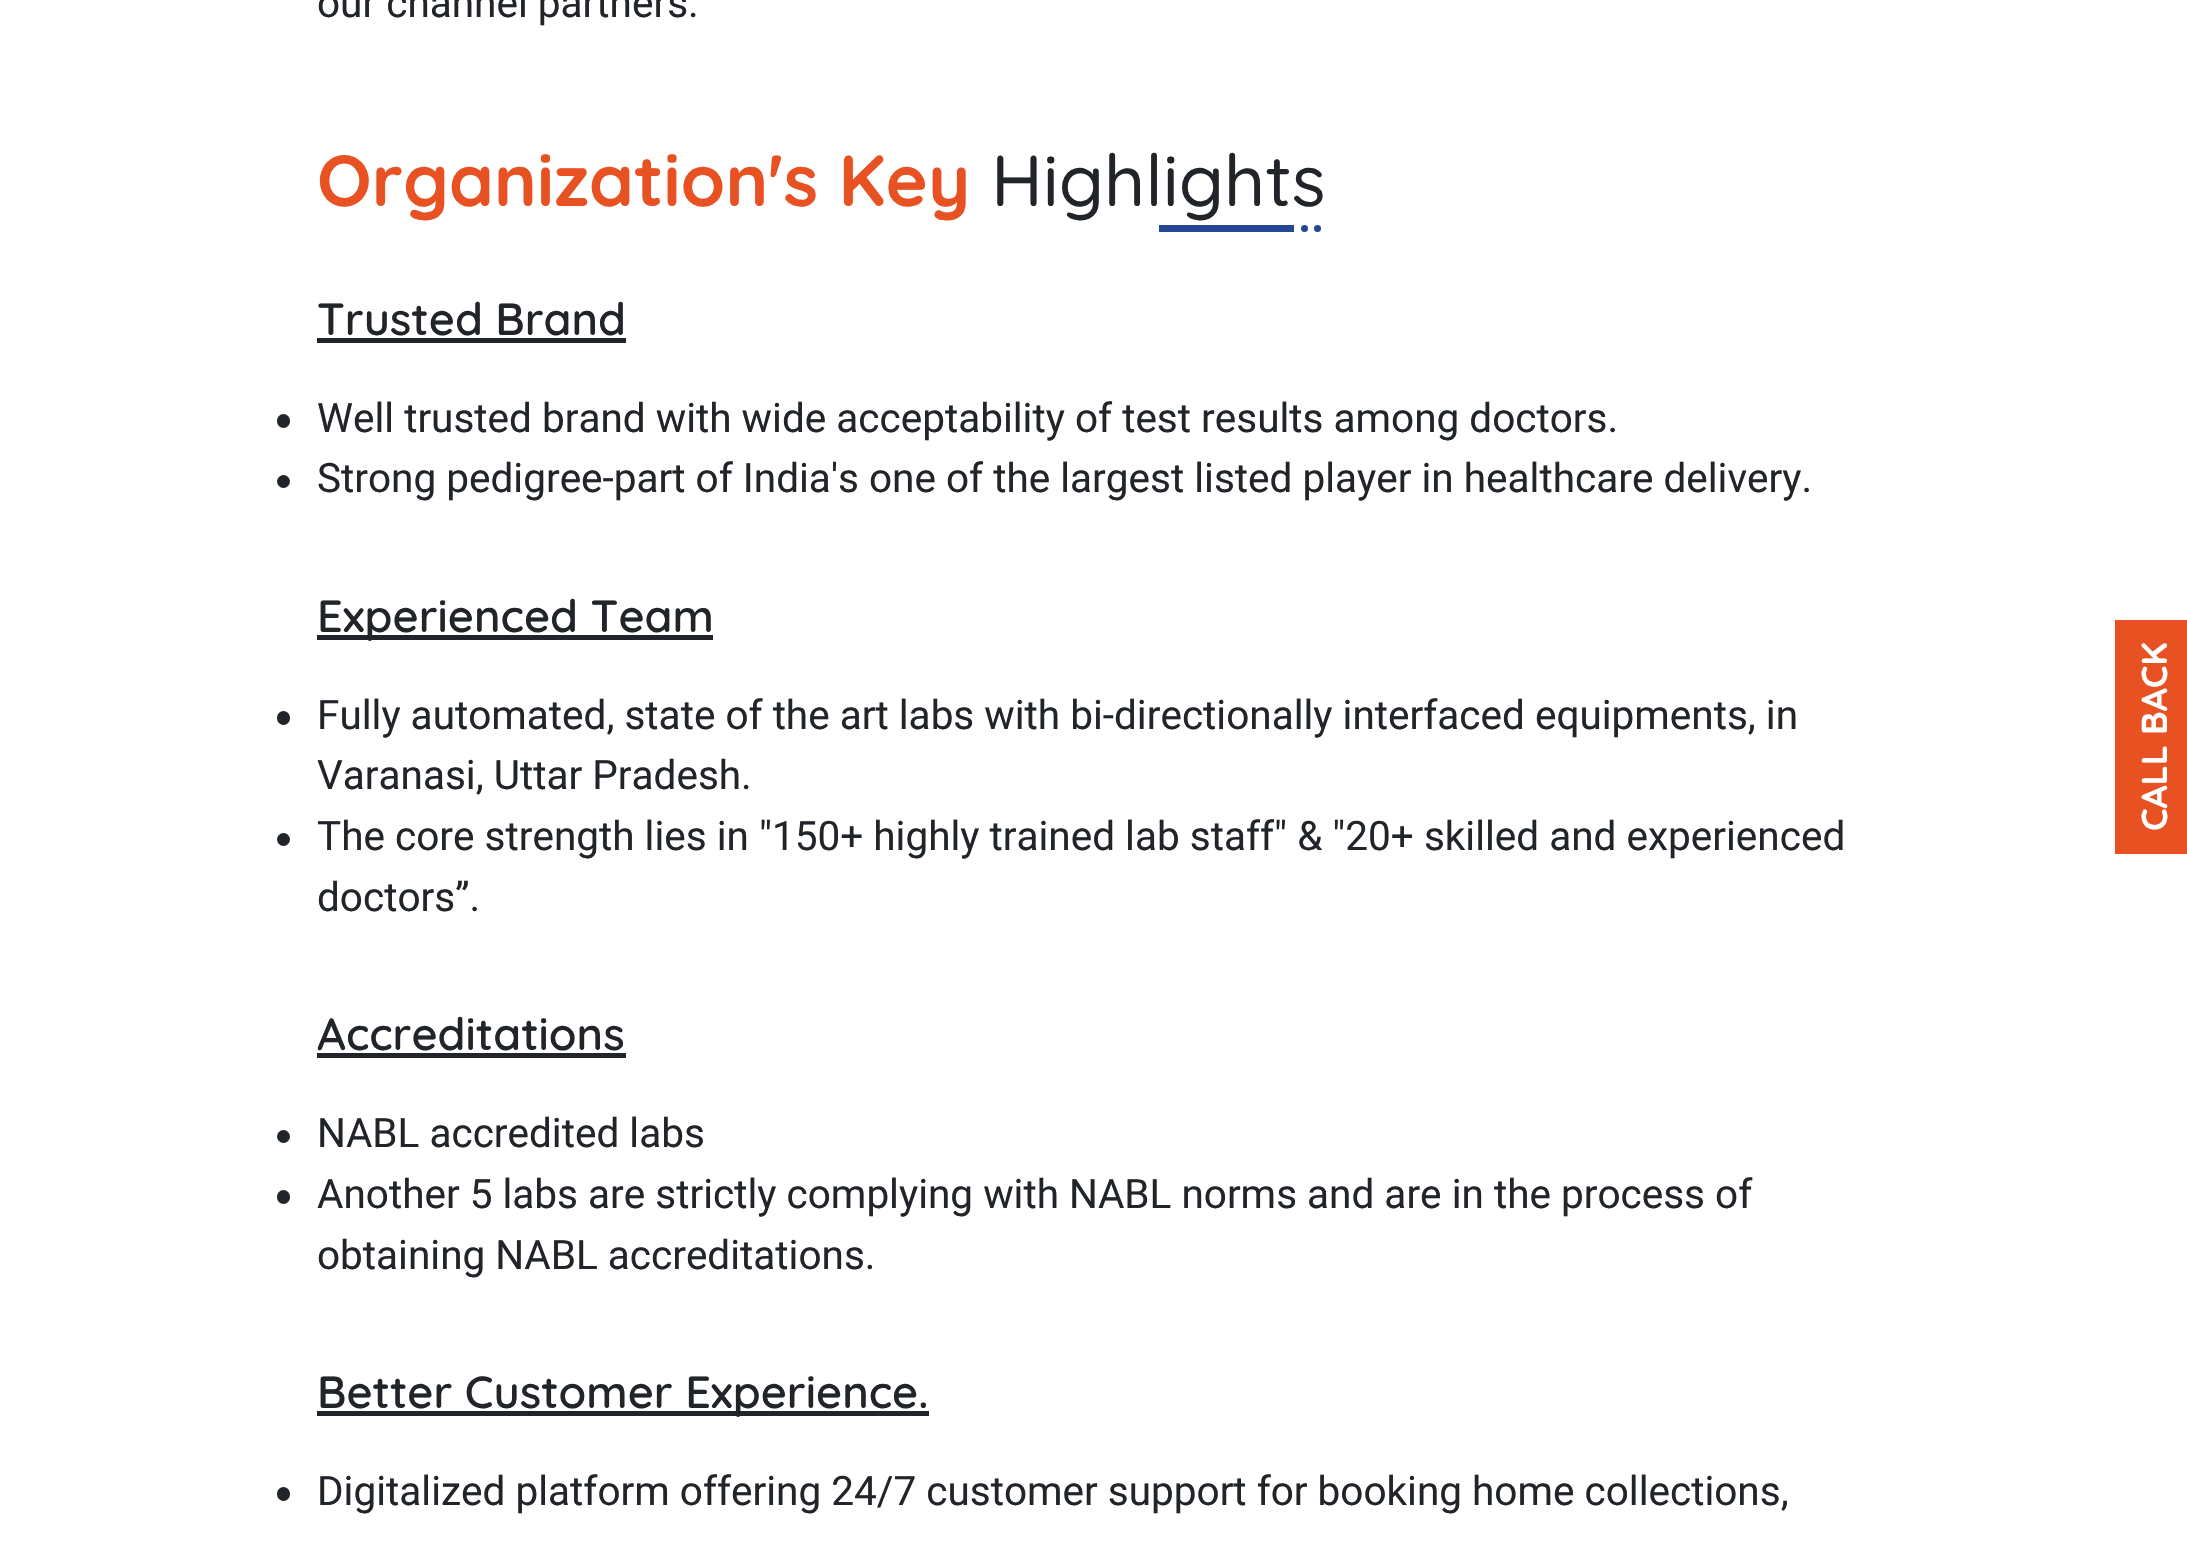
void draw(SkCanvas* c) {
SkPaint p;
p.setAntiAlias(true);
auto F=[&](const char* family, int weight, float size, bool italic = false){SkFontStyle style(weight, SkFontStyle::kNormal_Width,italic ? SkFontStyle::kItalic_Slant : SkFontStyle::kUpright_Slant);SkFont result(fontMgr->matchFamilyStyle(family, style), size);result.setSubpixel(true);return result;};
auto T=[&](const char* s, float x, float y, const SkFont& font){c->drawString(s, x, y, font, p);};
auto R=[&](float x, float y, float w, float h){c->drawRect(SkRect::MakeXYWH(x, y, w, h), p);};
auto Q=[&](float x, float y, float w, float h, float radius){c->drawRoundRect(SkRect::MakeXYWH(x, y, w, h), radius, radius, p);};
c->clear(0xffffffff);
auto f1 = F("Roboto",400,40.5);
p.setColor(0xff212529);
T("our channel partners.",317,17,f1);
auto f2 = F("Quicksand",700,72);
p.setColor(0xffe85122);
T("Organization's Key",317,206,f2);
auto f3 = F("Quicksand",500,72);
p.setColor(0xff212529);
T("Highlights",991,206,f3);
p.setColor(0xff264796);
R(1159,225,135,7);
c->drawCircle(1304.5,228.5,3.5,p);
c->drawCircle(1317.5,228.5,3.5,p);
auto f4 = F("Quicksand",600,45);
p.setColor(0xff212529);
T("Trusted Brand",317,335,f4);
R(317,338,309,5);
Q(277,414,13,14,6.5);
T("Well trusted brand with wide acceptability of test results among doctors.",317,432,f1);
c->drawCircle(283.5,481.5,6.5,p);
T("Strong pedigree-part of India's one of the largest listed player in healthcare delivery.",317,492,f1);
R(317,635,396,5);
T("Experienced Team",317,632,f4);
Q(277,711,13,14,6.5);
T("Fully automated, state of the art labs with bi-directionally interfaced equipments, in",317,729,f1);
T("Varanasi, Uttar Pradesh.",317,789,f1);
c->drawCircle(283.5,839.5,6.5,p);
T("The core strength lies in \"150+ highly trained lab staff\" & \"20+ skilled and experienced",317,850,f1);
T("doctors”.",317,911,f1);
T("Accreditations",317,1050,f4);
R(317,1053,309,5);
c->drawCircle(283.5,1136.5,6.5,p);
T("NABL accredited labs",317,1147,f1);
Q(277,1190,13,14,6.5);
T("Another 5 labs are strictly complying with NABL norms and are in the process of",317,1208,f1);
T("obtaining NABL accreditations.",317,1269,f1);
R(317,1411,612,5);
T("Better Customer Experience.",317,1408,f4);
Q(277,1487,13,14,6.5);
T("Digitalized platform offering 24/7 customer support for booking home collections,",317,1505,f1);
p.setColor(0xffe85122);
R(2115,620,72,234);
auto f5 = F("Quicksand",700,36);
p.setColor(0xffffffff);
c->save();
c->rotate(-90,2167,831);
T("CALL BACK",2167,831,f5);
c->restore();
}
